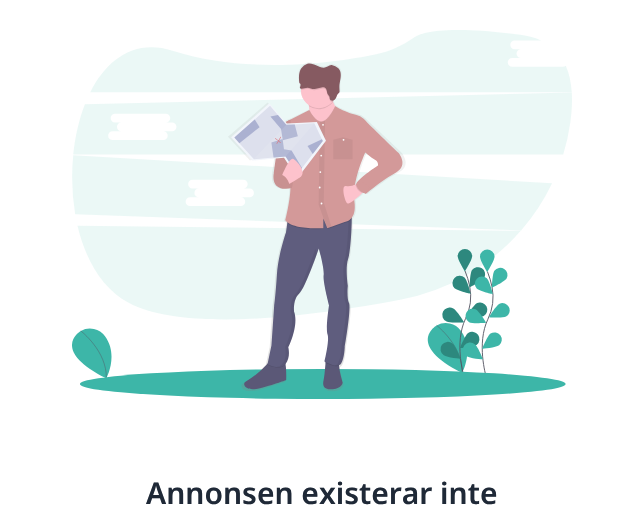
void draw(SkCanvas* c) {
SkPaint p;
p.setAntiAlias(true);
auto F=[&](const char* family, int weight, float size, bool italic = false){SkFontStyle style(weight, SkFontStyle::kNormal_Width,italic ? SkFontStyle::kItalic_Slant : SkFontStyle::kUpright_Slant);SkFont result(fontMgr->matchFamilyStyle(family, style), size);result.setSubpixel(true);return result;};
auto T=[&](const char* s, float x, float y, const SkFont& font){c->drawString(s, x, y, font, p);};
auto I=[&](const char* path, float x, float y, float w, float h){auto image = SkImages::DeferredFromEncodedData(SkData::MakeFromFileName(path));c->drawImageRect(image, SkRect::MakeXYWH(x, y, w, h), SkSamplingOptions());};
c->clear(0xffffffff);
I("1.png",72,30,500,369);
auto f1 = F("Noto Sans",600,30);
p.setColor(0xff1f2937);
T("Annonsen existerar inte",146,504,f1);
}
